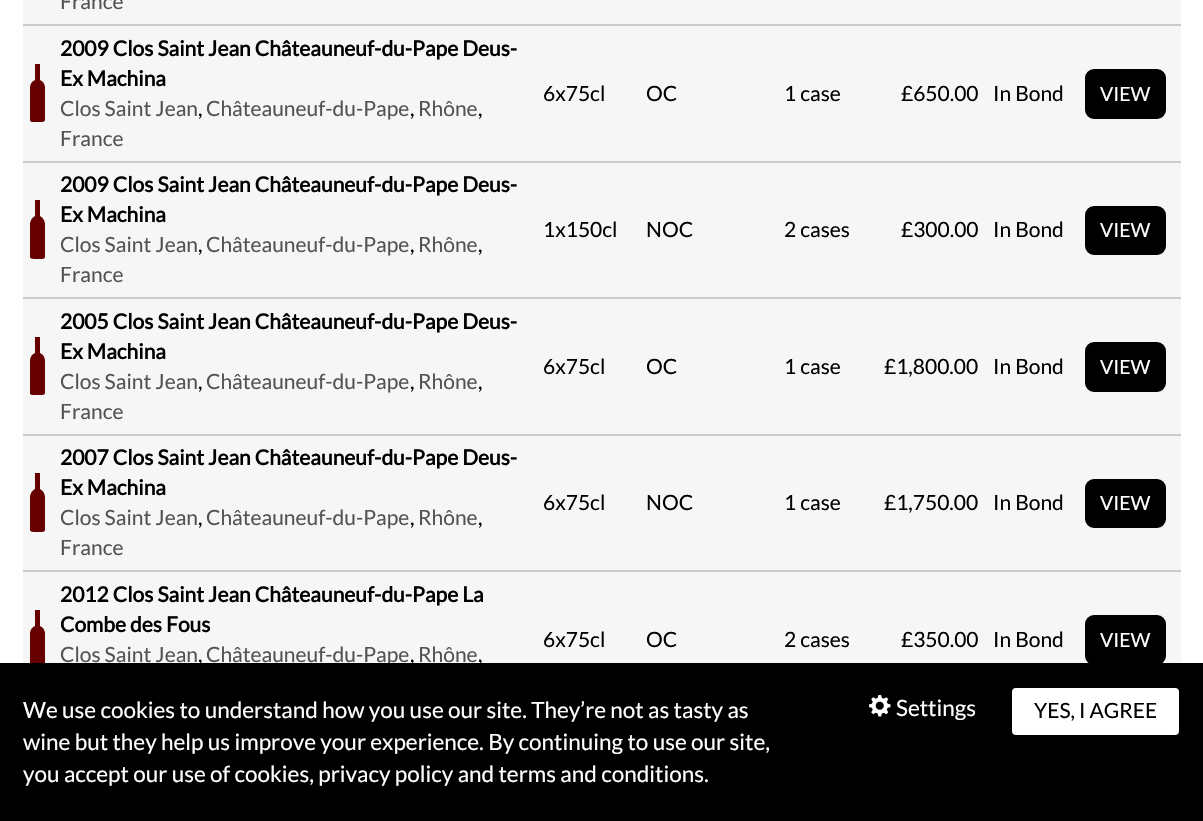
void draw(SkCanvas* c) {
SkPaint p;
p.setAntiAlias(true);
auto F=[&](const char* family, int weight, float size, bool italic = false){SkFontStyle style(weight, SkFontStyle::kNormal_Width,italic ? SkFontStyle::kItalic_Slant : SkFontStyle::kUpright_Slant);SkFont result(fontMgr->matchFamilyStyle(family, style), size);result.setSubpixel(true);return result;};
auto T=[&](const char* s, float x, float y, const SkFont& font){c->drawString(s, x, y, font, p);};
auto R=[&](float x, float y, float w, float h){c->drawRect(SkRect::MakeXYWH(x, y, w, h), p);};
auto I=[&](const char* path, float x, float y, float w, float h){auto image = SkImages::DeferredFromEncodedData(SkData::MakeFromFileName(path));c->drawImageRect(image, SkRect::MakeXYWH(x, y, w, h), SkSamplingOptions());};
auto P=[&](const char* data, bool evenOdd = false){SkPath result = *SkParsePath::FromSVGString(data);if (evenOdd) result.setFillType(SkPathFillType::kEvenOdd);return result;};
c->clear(0xffffffff);
p.setColor(0xfff6f6f6);
R(23,0,1158,663);
p.setColor(0xffcccccc);
R(23,24,1158,2);
auto f1 = F("Lato",400,21);
p.setColor(0xff535353);
T("France",60,9,f1);
p.setColor(0xffcccccc);
R(23,161,1158,2);
c->save();
c->clipRect(SkRect::MakeXYWH(30,63,15,60));
p.setColor(0xff660000);
c->drawPath(P("M40 80v-16h-5v16c-7 3-5 12-5 18v17c0 6-1 7 4 7h8c4 0 3-3 3-7v-17c0-6 2-15-5-18z"),p);
c->restore();
auto f2 = F("Lato",700,21);
p.setColor(0xff000000);
T("2009 Clos Saint Jean Châteauneuf-du-Pape Deus-",60,56,f2);
T("Ex Machina",60,86,f2);
p.setColor(0xff535353);
T("Clos Saint Jean",60,116,f1);
p.setColor(0xff000000);
T(",",198,116,f1);
p.setColor(0xff535353);
T("Châteauneuf-du-Pape",206,116,f1);
p.setColor(0xff000000);
T(",",410,116,f1);
p.setColor(0xff535353);
T("Rhône",418,116,f1);
p.setColor(0xff000000);
T(",",478,116,f1);
p.setColor(0xff535353);
T("France",60,146,f1);
p.setColor(0xff000000);
T("6x75cl",543,101,f1);
T("OC",646,101,f1);
T("1 case",784,101,f1);
T("£650.00",901,101,f1);
T("In Bond",993,101,f1);
c->drawRoundRect(SkRect::MakeXYWH(1086,70,79,48),8,8,p);
p.setStroke(true);
p.setStrokeWidth(2);
c->drawRoundRect(SkRect::MakeXYWH(1086,70,79,48),8,8,p);
auto f3 = F("Lato",400,19.5);
p.setStroke(false);
p.setColor(0xffffffff);
T("VIEW",1100,101,f3);
p.setColor(0xffcccccc);
R(23,297,1158,2);
c->save();
c->clipRect(SkRect::MakeXYWH(30,200,15,60));
p.setColor(0xff660000);
c->drawPath(P("M40 216v-16h-5v16c-7 4-5 12-5 19v17c0 5-1 7 4 7h8c4 0 3-3 3-7v-17c0-7 2-15-5-19z"),p);
c->restore();
p.setColor(0xff000000);
T("2009 Clos Saint Jean Châteauneuf-du-Pape Deus-",60,192,f2);
T("Ex Machina",60,222,f2);
p.setColor(0xff535353);
T("Clos Saint Jean",60,252,f1);
p.setColor(0xff000000);
T(",",198,252,f1);
p.setColor(0xff535353);
T("Châteauneuf-du-Pape",206,252,f1);
p.setColor(0xff000000);
T(",",410,252,f1);
p.setColor(0xff535353);
T("Rhône",418,252,f1);
p.setColor(0xff000000);
T(",",478,252,f1);
p.setColor(0xff535353);
T("France",60,282,f1);
p.setColor(0xff000000);
T("1x150cl",543,237,f1);
T("NOC",646,237,f1);
T("2 cases",784,237,f1);
T("£300.00",901,237,f1);
T("In Bond",993,237,f1);
c->drawRoundRect(SkRect::MakeXYWH(1086,207,79,47),8,8,p);
p.setStroke(true);
c->drawRoundRect(SkRect::MakeXYWH(1086,207,79,47),8,8,p);
p.setStroke(false);
p.setColor(0xffffffff);
T("VIEW",1100,237,f3);
p.setColor(0xffcccccc);
R(23,434,1158,2);
c->save();
c->clipRect(SkRect::MakeXYWH(30,336,15,60));
p.setColor(0xff660000);
c->drawPath(P("M40 353v-16h-5v16c-7 3-5 12-5 18v17c0 6-1 7 4 7h8c4 0 3-3 3-7v-17c0-6 2-15-5-18z"),p);
c->restore();
p.setColor(0xff000000);
T("2005 Clos Saint Jean Châteauneuf-du-Pape Deus-",60,329,f2);
T("Ex Machina",60,359,f2);
p.setColor(0xff535353);
T("Clos Saint Jean",60,389,f1);
p.setColor(0xff000000);
T(",",198,389,f1);
p.setColor(0xff535353);
T("Châteauneuf-du-Pape",206,389,f1);
p.setColor(0xff000000);
T(",",410,389,f1);
p.setColor(0xff535353);
T("Rhône",418,389,f1);
p.setColor(0xff000000);
T(",",478,389,f1);
p.setColor(0xff535353);
T("France",60,419,f1);
p.setColor(0xff000000);
T("6x75cl",543,374,f1);
T("OC",646,374,f1);
T("1 case",784,374,f1);
T("£1,800.00",884,374,f1);
T("In Bond",993,374,f1);
c->drawRoundRect(SkRect::MakeXYWH(1086,343,79,48),8,8,p);
p.setStroke(true);
c->drawRoundRect(SkRect::MakeXYWH(1086,343,79,48),8,8,p);
p.setStroke(false);
p.setColor(0xffffffff);
T("VIEW",1100,374,f3);
p.setColor(0xffcccccc);
R(23,570,1158,2);
c->save();
c->clipRect(SkRect::MakeXYWH(30,473,15,60));
p.setColor(0xff660000);
c->drawPath(P("M40 489v-16h-5v16c-7 4-5 12-5 19v17c0 5-1 7 4 7h8c4 0 3-3 3-7v-17c0-7 2-15-5-19z"),p);
c->restore();
p.setColor(0xff000000);
T("2007 Clos Saint Jean Châteauneuf-du-Pape Deus-",60,465,f2);
T("Ex Machina",60,495,f2);
p.setColor(0xff535353);
T("Clos Saint Jean",60,525,f1);
p.setColor(0xff000000);
T(",",198,525,f1);
p.setColor(0xff535353);
T("Châteauneuf-du-Pape",206,525,f1);
p.setColor(0xff000000);
T(",",410,525,f1);
p.setColor(0xff535353);
T("Rhône",418,525,f1);
p.setColor(0xff000000);
T(",",478,525,f1);
p.setColor(0xff535353);
T("France",60,555,f1);
p.setColor(0xff000000);
T("6x75cl",543,510,f1);
T("NOC",646,510,f1);
T("1 case",784,510,f1);
T("£1,750.00",884,510,f1);
T("In Bond",993,510,f1);
c->drawRoundRect(SkRect::MakeXYWH(1086,480,79,47),8,8,p);
p.setStroke(true);
c->drawRoundRect(SkRect::MakeXYWH(1086,480,79,47),8,8,p);
p.setStroke(false);
p.setColor(0xffffffff);
T("VIEW",1100,510,f3);
c->save();
c->clipRect(SkRect::MakeXYWH(30,609,15,60));
p.setColor(0xff660000);
c->drawPath(P("M40 626v-16h-5v16c-7 3-5 12-5 18v17c0 6-1 7 4 7h8c4 0 3-3 3-7v-17c0-6 2-15-5-18z"),p);
c->restore();
p.setColor(0xff000000);
T("2012 Clos Saint Jean Châteauneuf-du-Pape La",60,602,f2);
T("Combe des Fous",60,632,f2);
p.setColor(0xff535353);
T("Clos Saint Jean",60,662,f1);
p.setColor(0xff000000);
T(",",198,662,f1);
p.setColor(0xff535353);
T("Châteauneuf-du-Pape",206,662,f1);
p.setColor(0xff000000);
T(",",410,662,f1);
p.setColor(0xff535353);
T("Rhône",418,662,f1);
p.setColor(0xff000000);
T(",",478,662,f1);
T("6x75cl",543,647,f1);
T("OC",646,647,f1);
T("2 cases",784,647,f1);
T("£350.00",901,647,f1);
T("In Bond",993,647,f1);
c->drawRoundRect(SkRect::MakeXYWH(1086,616,79,48),8,8,p);
p.setStroke(true);
c->drawRoundRect(SkRect::MakeXYWH(1086,616,79,48),8,8,p);
p.setStroke(false);
p.setColor(0xffffffff);
T("VIEW",1100,647,f3);
p.setColor(0xff000000);
R(0,663,1203,158);
auto f4 = F("Lato",400,22.5);
p.setColor(0xffffffff);
T("We use cookies to understand how you use our site. They’re not as tasty as",23,718,f4);
T("wine but they help us improve your experience. By continuing to use our site,",23,750,f4);
T("you accept our use of cookies, privacy policy and terms and conditions.",23,782,f4);
I("1.png",869,695,22,22);
T("Settings",896,716,f4);
c->drawRoundRect(SkRect::MakeXYWH(1011,687,169,49),5,5,p);
p.setStroke(true);
p.setColor(0xff000000);
c->drawRoundRect(SkRect::MakeXYWH(1011,687,169,49),5,5,p);
p.setStroke(false);
T("YES, I AGREE",1034,718,f1);
}
